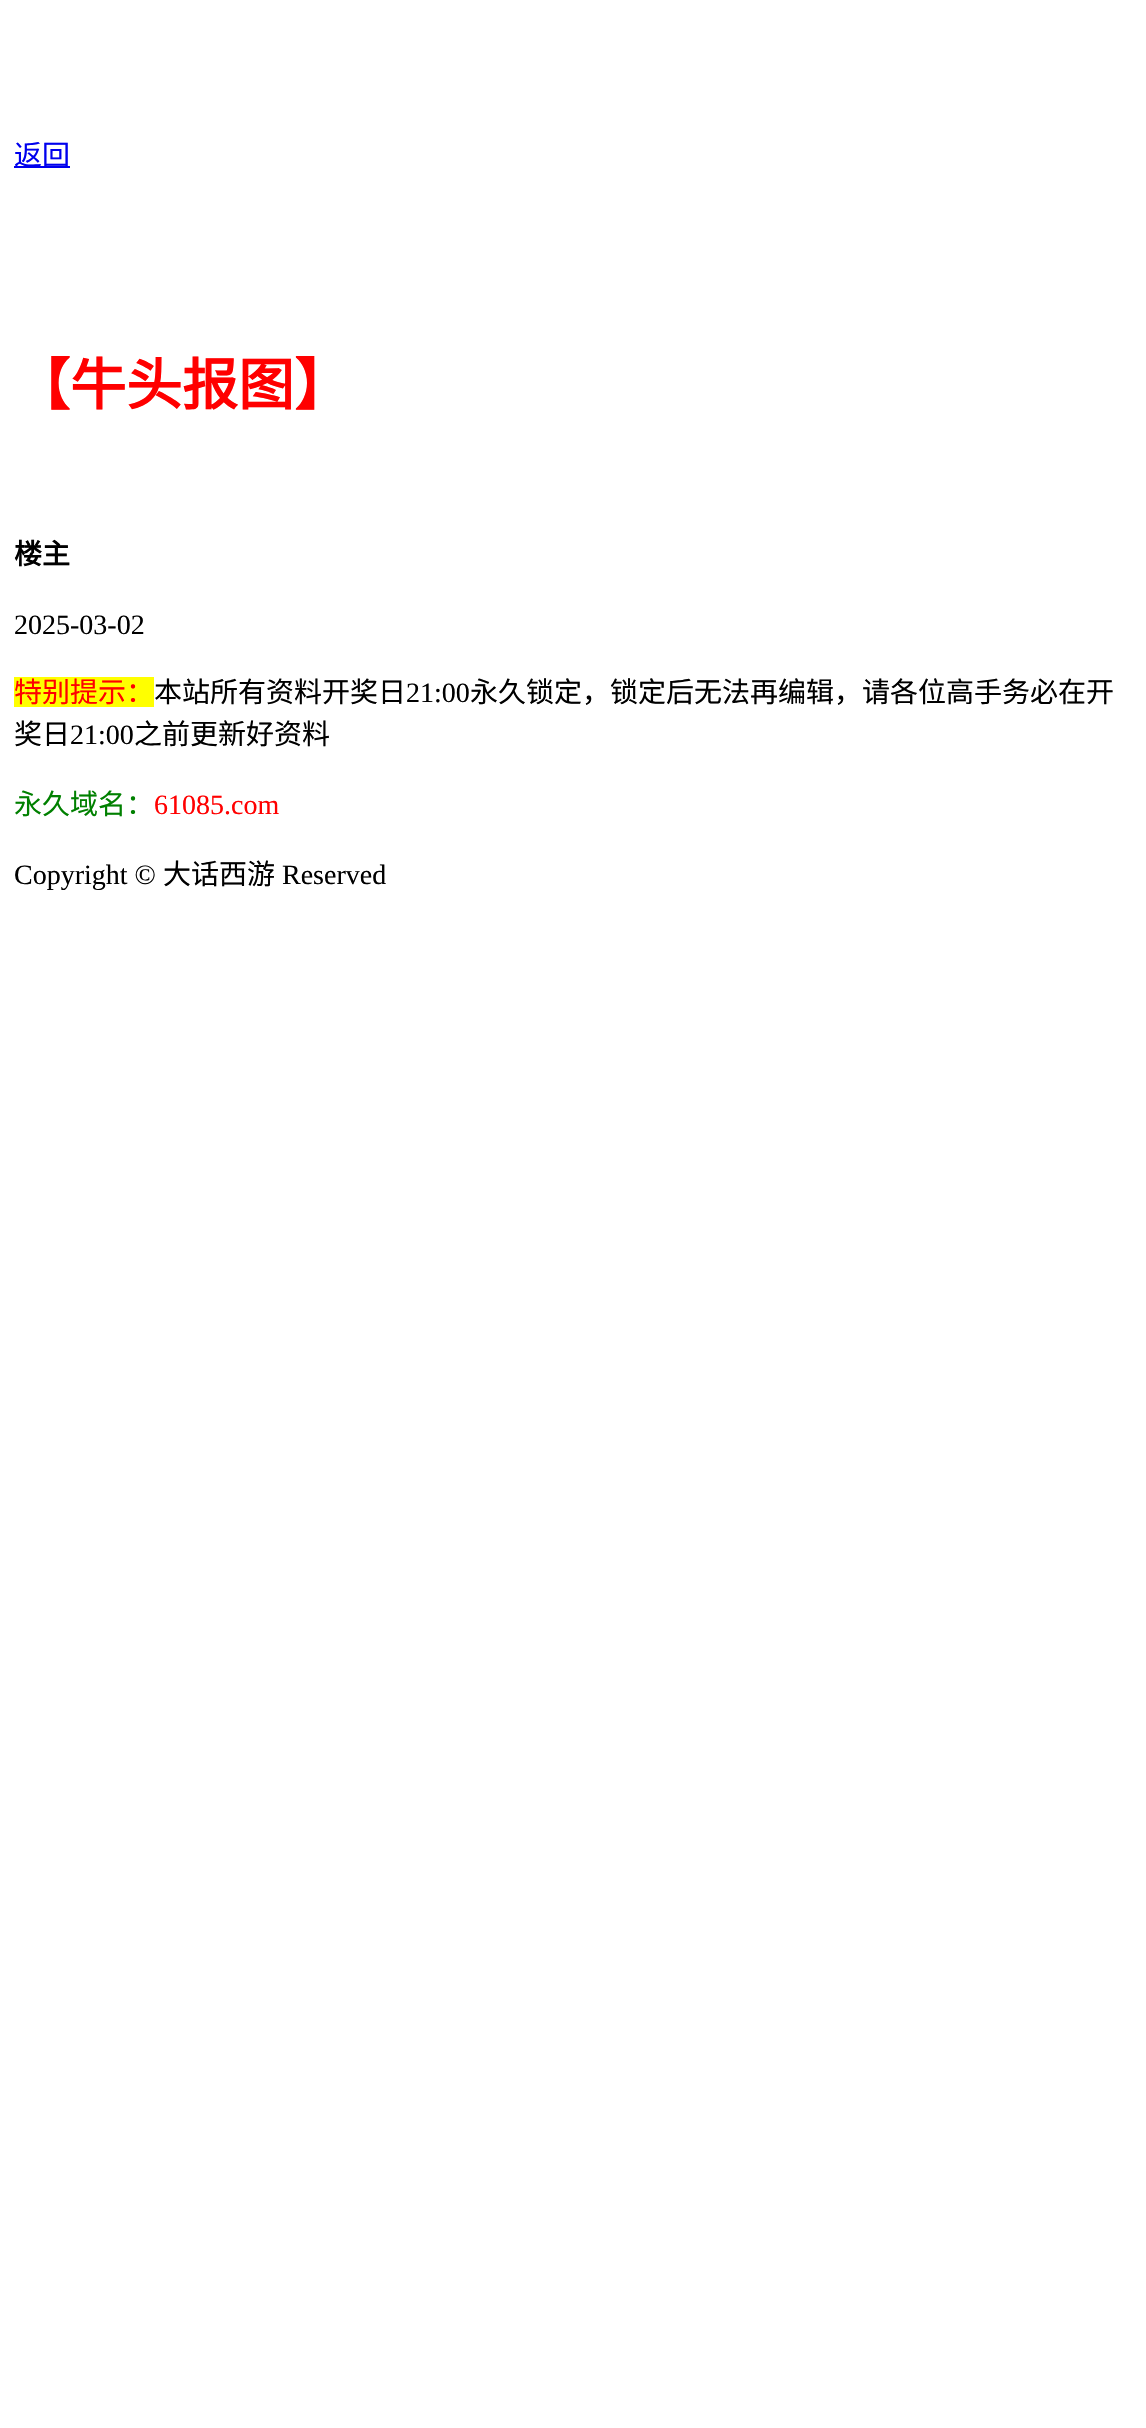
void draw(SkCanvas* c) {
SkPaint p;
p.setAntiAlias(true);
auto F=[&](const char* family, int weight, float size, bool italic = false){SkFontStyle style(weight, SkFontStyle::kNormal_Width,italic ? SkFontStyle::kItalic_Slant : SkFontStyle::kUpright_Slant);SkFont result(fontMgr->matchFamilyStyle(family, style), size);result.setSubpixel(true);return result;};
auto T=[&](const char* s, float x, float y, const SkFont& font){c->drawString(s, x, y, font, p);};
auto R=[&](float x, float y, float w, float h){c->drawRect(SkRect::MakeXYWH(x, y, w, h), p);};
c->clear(0xffffffff);
p.setColor(0xff0000ee);
R(14,166,56,2);
auto f1 = F("Noto Sans CJK SC",400,28);
T("返回",14,165,f1);
auto f2 = F("Noto Sans CJK SC",700,56);
p.setColor(0xffff0000);
T("【牛头报图】",14,405,f2);
auto f3 = F("Noto Sans CJK SC",700,28);
p.setColor(0xff000000);
T("楼主",14,564,f3);
auto f4 = F("Liberation Serif",400,28);
T("2025-03-02",14,634,f4);
p.setColor(0xffffff00);
R(14,677,140,30);
p.setColor(0xffff0000);
T("特别提示：",14,702,f1);
p.setColor(0xff000000);
T("本站所有资料开奖日",154,702,f1);
T("21:00",406,702,f4);
T("永久锁定，锁定后无法再编辑，请各位高手务必在开",470,702,f1);
T("奖日",14,744,f1);
T("21:00",70,744,f4);
T("之前更新好资料",134,744,f1);
p.setColor(0xff008000);
T("永久域名：",14,814,f1);
p.setColor(0xffff0000);
T("61085.com",154,814,f4);
p.setColor(0xff000000);
T("Copyright ©",14,884,f4);
T("大话西游",163,884,f1);
T("Reserved",282,884,f4);
}
